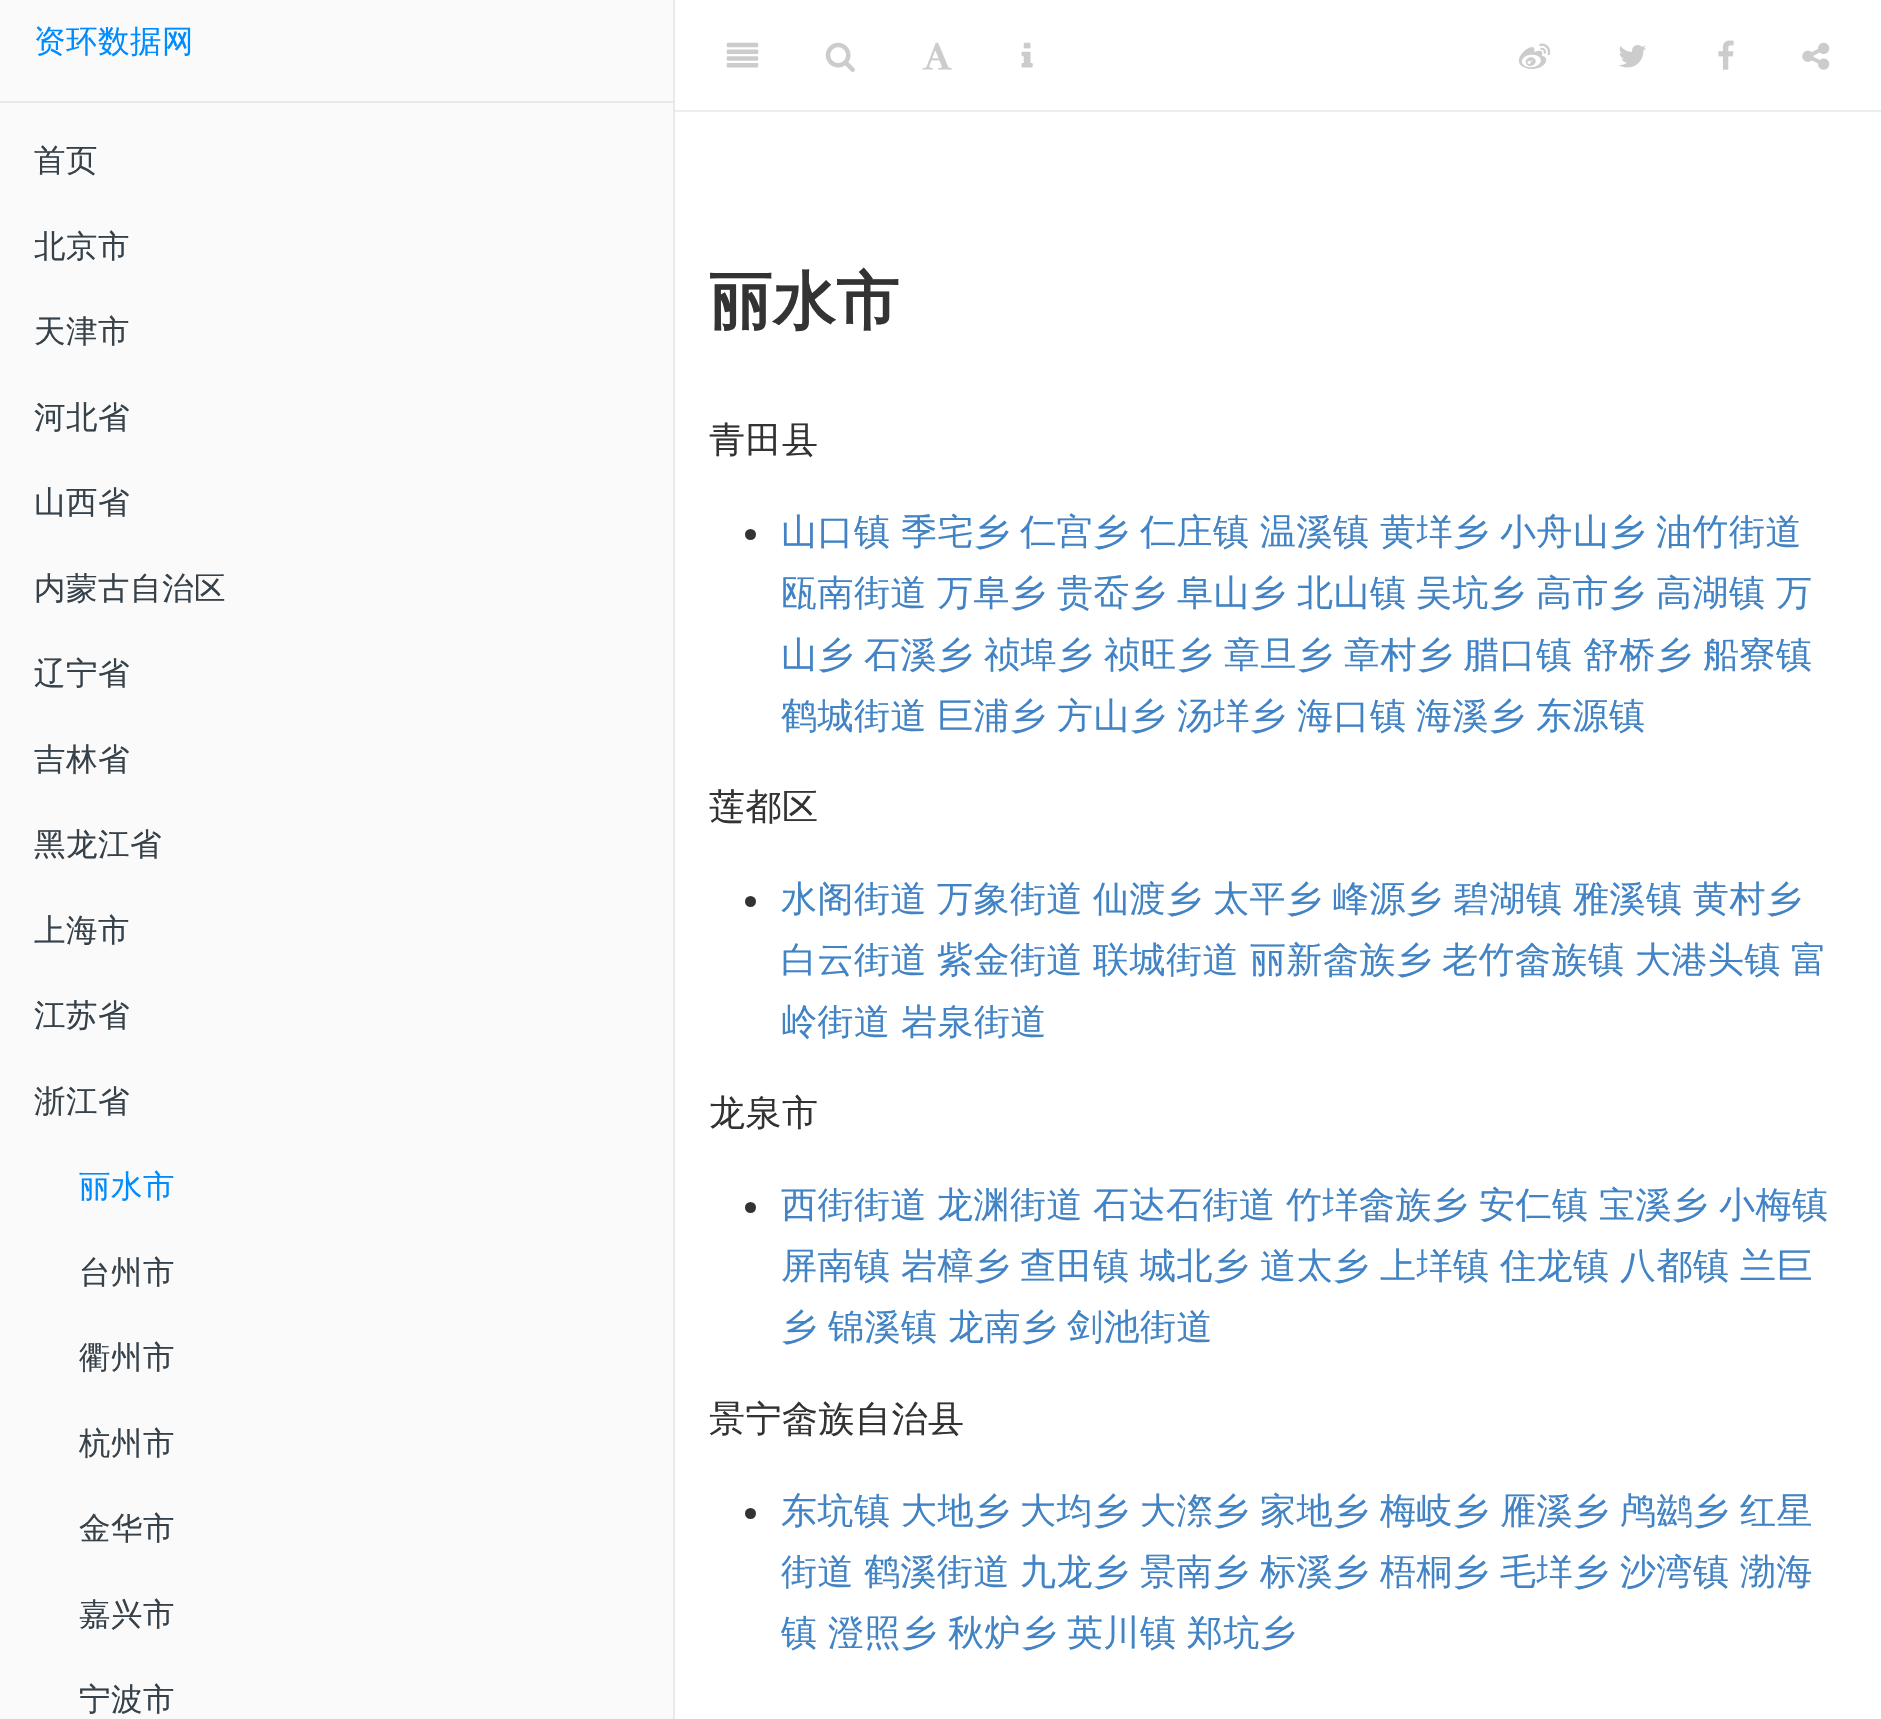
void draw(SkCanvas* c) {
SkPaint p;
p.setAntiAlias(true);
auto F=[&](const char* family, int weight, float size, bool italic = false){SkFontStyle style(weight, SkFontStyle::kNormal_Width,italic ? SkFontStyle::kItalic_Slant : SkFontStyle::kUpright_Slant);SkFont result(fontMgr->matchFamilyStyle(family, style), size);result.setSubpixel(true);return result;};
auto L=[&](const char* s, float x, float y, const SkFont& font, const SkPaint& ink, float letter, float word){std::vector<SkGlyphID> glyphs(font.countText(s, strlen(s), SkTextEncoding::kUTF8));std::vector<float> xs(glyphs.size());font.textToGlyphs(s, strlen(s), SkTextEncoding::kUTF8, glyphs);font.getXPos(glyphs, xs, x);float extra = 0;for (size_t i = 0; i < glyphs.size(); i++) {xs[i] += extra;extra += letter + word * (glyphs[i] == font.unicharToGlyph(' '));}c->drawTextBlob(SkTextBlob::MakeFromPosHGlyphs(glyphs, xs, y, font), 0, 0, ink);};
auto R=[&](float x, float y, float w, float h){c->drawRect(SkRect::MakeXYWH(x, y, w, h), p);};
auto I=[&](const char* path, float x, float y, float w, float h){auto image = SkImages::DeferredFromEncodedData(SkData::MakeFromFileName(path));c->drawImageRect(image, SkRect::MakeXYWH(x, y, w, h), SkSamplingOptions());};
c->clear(0xffffffff);
p.setColor(0xfffafafa);
R(0,0,673,1719);
p.setColor(0xffe9e9e9);
R(673,0,2,1719);
auto f1 = F("WenQuanYi Zen Hei",500,31.5);
p.setColor(0xff008cff);
L("资环数据网",34,52,f1,p,.5,0);
p.setColor(0xffe9e9e9);
R(0,101,673,2);
p.setColor(0xff364149);
L("首页",34,171,f1,p,.5,0);
L("北京市",34,257,f1,p,.5,0);
L("天津市",34,342,f1,p,.5,0);
L("河北省",34,428,f1,p,.5,0);
L("山西省",34,513,f1,p,.5,0);
L("内蒙古自治区",34,599,f1,p,.5,0);
L("辽宁省",34,684,f1,p,.5,0);
L("吉林省",34,770,f1,p,.5,0);
L("黑龙江省",34,855,f1,p,.5,0);
L("上海市",34,941,f1,p,.5,0);
L("江苏省",34,1026,f1,p,.5,0);
L("浙江省",34,1112,f1,p,.5,0);
p.setColor(0xff008cff);
L("丽水市",79,1197,f1,p,.5,0);
p.setColor(0xff364149);
L("台州市",79,1283,f1,p,.5,0);
L("衢州市",79,1368,f1,p,.5,0);
L("杭州市",79,1454,f1,p,.5,0);
L("金华市",79,1539,f1,p,.5,0);
L("嘉兴市",79,1625,f1,p,.5,0);
L("宁波市",79,1710,f1,p,.5,0);
p.setColor(0xffededed);
R(675,110,1206,2);
I("1.png",726,42,33,26);
I("2.png",825,42,30,30);
I("3.png",922,42,30,28);
I("4.png",1021,42,12,26);
I("5.png",1518,43,33,26);
I("6.png",1619,45,27,23);
I("7.png",1718,40,16,30);
I("8.png",1802,42,28,28);
auto f2 = F("WenQuanYi Zen Hei",700,63);
p.setColor(0xff333333);
L("丽水市",709,323,f2,p,.5,0);
auto f3 = F("WenQuanYi Zen Hei",500,36);
L("青田县",709,452,f3,p,.5,0);
c->drawCircle(750.5,534.5,5.5,p);
p.setColor(0xff4183c4);
L("山口镇",781,544,f3,p,.5,0);
L("季宅乡",901,544,f3,p,.5,0);
L("仁宫乡",1020,544,f3,p,.5,0);
L("仁庄镇",1140,544,f3,p,.5,0);
L("温溪镇",1260,544,f3,p,.5,0);
L("黄垟乡",1380,544,f3,p,.5,0);
L("小舟山乡",1500,544,f3,p,.5,0);
L("油竹街道",1656,544,f3,p,.5,0);
L("瓯南街道",781,605,f3,p,.5,0);
L("万阜乡",937,605,f3,p,.5,0);
L("贵岙乡",1057,605,f3,p,.5,0);
L("阜山乡",1177,605,f3,p,.5,0);
L("北山镇",1297,605,f3,p,.5,0);
L("吴坑乡",1416,605,f3,p,.5,0);
L("高市乡",1536,605,f3,p,.5,0);
L("高湖镇",1656,605,f3,p,.5,0);
L("万",1776,605,f3,p,.5,0);
L("山乡",781,667,f3,p,.5,0);
L("石溪乡",864,667,f3,p,.5,0);
L("祯埠乡",984,667,f3,p,.5,0);
L("祯旺乡",1104,667,f3,p,.5,0);
L("章旦乡",1224,667,f3,p,.5,0);
L("章村乡",1344,667,f3,p,.5,0);
L("腊口镇",1463,667,f3,p,.5,0);
L("舒桥乡",1583,667,f3,p,.5,0);
L("船寮镇",1703,667,f3,p,.5,0);
L("鹤城街道",781,728,f3,p,.5,0);
L("巨浦乡",937,728,f3,p,.5,0);
L("方山乡",1057,728,f3,p,.5,0);
L("汤垟乡",1177,728,f3,p,.5,0);
L("海口镇",1297,728,f3,p,.5,0);
L("海溪乡",1416,728,f3,p,.5,0);
L("东源镇",1536,728,f3,p,.5,0);
p.setColor(0xff333333);
L("莲都区",709,819,f3,p,.5,0);
c->drawCircle(750.5,901.5,5.5,p);
p.setColor(0xff4183c4);
L("水阁街道",781,911,f3,p,.5,0);
L("万象街道",937,911,f3,p,.5,0);
L("仙渡乡",1093,911,f3,p,.5,0);
L("太平乡",1213,911,f3,p,.5,0);
L("峰源乡",1333,911,f3,p,.5,0);
L("碧湖镇",1453,911,f3,p,.5,0);
L("雅溪镇",1573,911,f3,p,.5,0);
L("黄村乡",1693,911,f3,p,.5,0);
L("白云街道",781,972,f3,p,.5,0);
L("紫金街道",937,972,f3,p,.5,0);
L("联城街道",1093,972,f3,p,.5,0);
L("丽新畲族乡",1250,972,f3,p,.5,0);
L("老竹畲族镇",1442,972,f3,p,.5,0);
L("大港头镇",1635,972,f3,p,.5,0);
L("富",1791,972,f3,p,.5,0);
L("岭街道",781,1034,f3,p,.5,0);
L("岩泉街道",901,1034,f3,p,.5,0);
p.setColor(0xff333333);
L("龙泉市",709,1125,f3,p,.5,0);
c->drawCircle(750.5,1207.5,5.5,p);
p.setColor(0xff4183c4);
L("西街街道",781,1217,f3,p,.5,0);
L("龙渊街道",937,1217,f3,p,.5,0);
L("石达石街道",1093,1217,f3,p,.5,0);
L("竹垟畲族乡",1286,1217,f3,p,.5,0);
L("安仁镇",1479,1217,f3,p,.5,0);
L("宝溪乡",1599,1217,f3,p,.5,0);
L("小梅镇",1719,1217,f3,p,.5,0);
L("屏南镇",781,1278,f3,p,.5,0);
L("岩樟乡",901,1278,f3,p,.5,0);
L("查田镇",1020,1278,f3,p,.5,0);
L("城北乡",1140,1278,f3,p,.5,0);
L("道太乡",1260,1278,f3,p,.5,0);
L("上垟镇",1380,1278,f3,p,.5,0);
L("住龙镇",1500,1278,f3,p,.5,0);
L("八都镇",1620,1278,f3,p,.5,0);
L("兰巨",1740,1278,f3,p,.5,0);
L("乡",781,1339,f3,p,.5,0);
L("锦溪镇",828,1339,f3,p,.5,0);
L("龙南乡",948,1339,f3,p,.5,0);
L("剑池街道",1067,1339,f3,p,.5,0);
p.setColor(0xff333333);
L("景宁畲族自治县",709,1431,f3,p,.5,0);
c->drawCircle(750.5,1513.5,5.5,p);
p.setColor(0xff4183c4);
L("东坑镇",781,1523,f3,p,.5,0);
L("大地乡",901,1523,f3,p,.5,0);
L("大均乡",1020,1523,f3,p,.5,0);
L("大漈乡",1140,1523,f3,p,.5,0);
L("家地乡",1260,1523,f3,p,.5,0);
L("梅岐乡",1380,1523,f3,p,.5,0);
L("雁溪乡",1500,1523,f3,p,.5,0);
L("鸬鹚乡",1620,1523,f3,p,.5,0);
L("红星",1740,1523,f3,p,.5,0);
L("街道",781,1584,f3,p,.5,0);
L("鹤溪街道",864,1584,f3,p,.5,0);
L("九龙乡",1020,1584,f3,p,.5,0);
L("景南乡",1140,1584,f3,p,.5,0);
L("标溪乡",1260,1584,f3,p,.5,0);
L("梧桐乡",1380,1584,f3,p,.5,0);
L("毛垟乡",1500,1584,f3,p,.5,0);
L("沙湾镇",1620,1584,f3,p,.5,0);
L("渤海",1740,1584,f3,p,.5,0);
L("镇",781,1645,f3,p,.5,0);
L("澄照乡",828,1645,f3,p,.5,0);
L("秋炉乡",948,1645,f3,p,.5,0);
L("英川镇",1067,1645,f3,p,.5,0);
L("郑坑乡",1187,1645,f3,p,.5,0);
}
